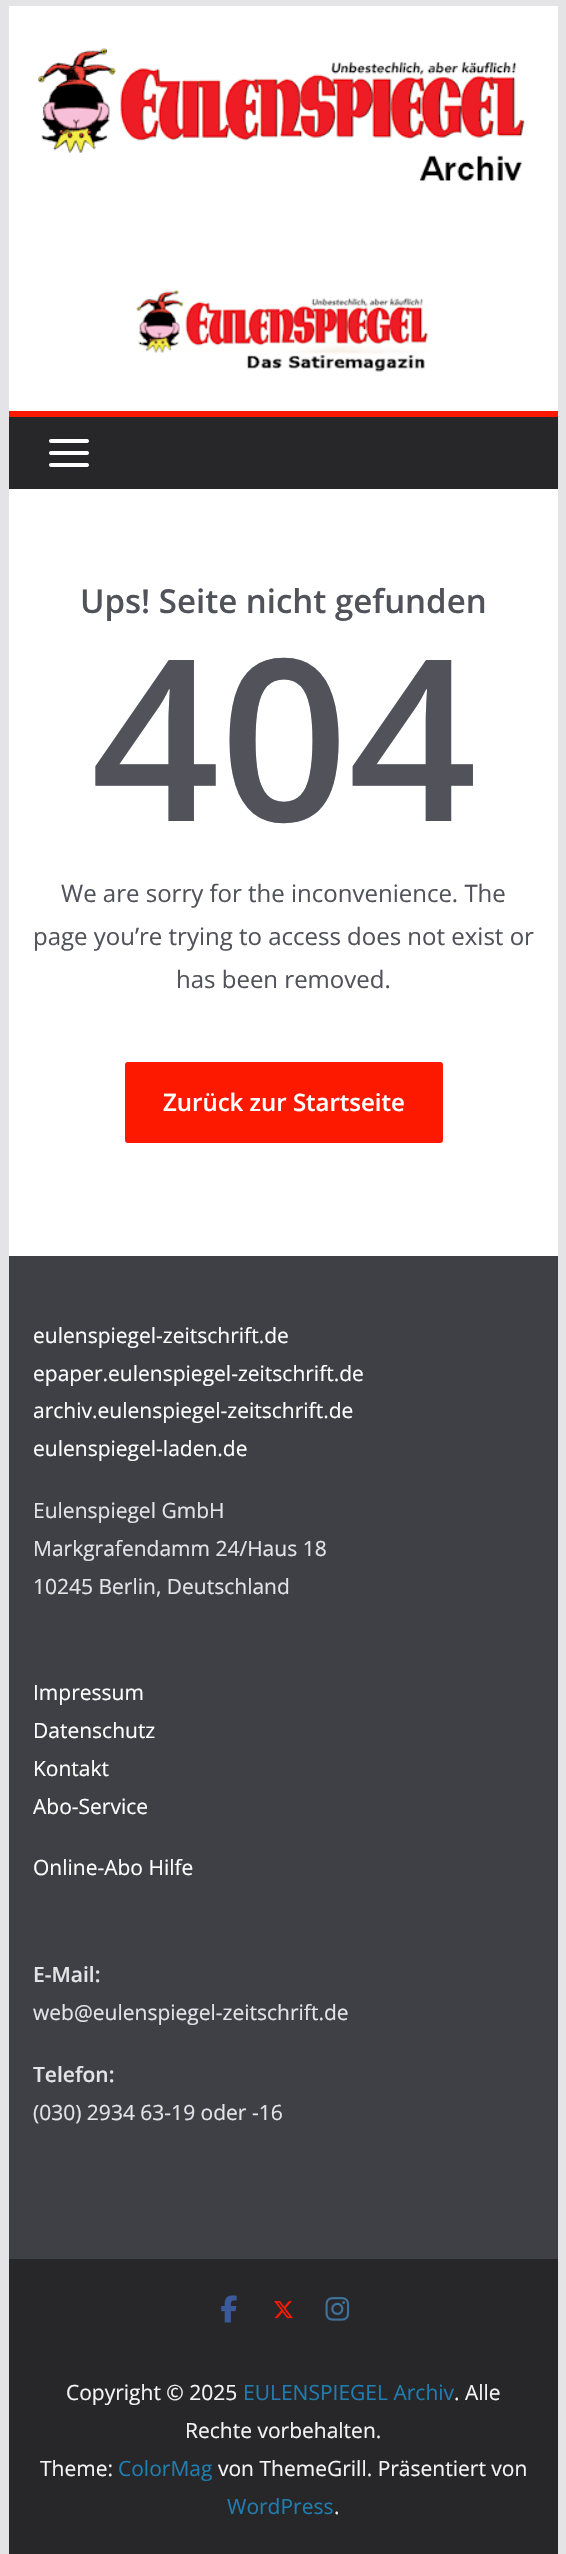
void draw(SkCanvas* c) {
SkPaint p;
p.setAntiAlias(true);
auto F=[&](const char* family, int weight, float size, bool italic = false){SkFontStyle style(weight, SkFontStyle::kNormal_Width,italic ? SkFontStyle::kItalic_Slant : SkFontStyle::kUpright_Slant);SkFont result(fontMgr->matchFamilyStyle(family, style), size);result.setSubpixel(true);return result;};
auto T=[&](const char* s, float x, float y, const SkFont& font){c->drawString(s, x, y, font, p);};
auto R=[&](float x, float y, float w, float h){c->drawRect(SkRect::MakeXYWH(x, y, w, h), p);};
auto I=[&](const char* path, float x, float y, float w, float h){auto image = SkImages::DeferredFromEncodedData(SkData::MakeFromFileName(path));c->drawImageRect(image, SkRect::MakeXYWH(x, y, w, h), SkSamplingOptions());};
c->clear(0xffe4e4e7);
p.setColor(0xffffffff);
R(9,6,549,405);
I("1.png",37,48,488,133);
I("2.png",136,290,293,82);
p.setColor(0xff27272a);
R(9,417,549,72);
p.setColor(0xfffc1900);
R(9,411,549,6);
I("3.png",49,439,40,28);
p.setColor(0xffffffff);
R(9,489,549,767);
auto f1 = F("Open Sans",600,33);
p.setColor(0xff52525b);
T("Ups! Seite nicht gefunden",80,613,f1);
auto f2 = F("Open Sans",600,225);
T("404",91,821,f2);
auto f3 = F("Open Sans",400,24);
T("We are sorry for the inconvenience. The",61,902,f3);
T("page you’re trying to access does not exist or",33,945,f3);
T("has been removed.",176,988,f3);
p.setColor(0xfffc1900);
c->drawRoundRect(SkRect::MakeXYWH(126,1063,316,79),2,2,p);
p.setStroke(true);
p.setStrokeWidth(2);
c->drawRoundRect(SkRect::MakeXYWH(126,1063,316,79),2,2,p);
auto f4 = F("Open Sans",600,24);
p.setStroke(false);
p.setColor(0xffffffff);
T("Zurück zur Startseite",163,1111,f4);
p.setColor(0xff3f3f46);
R(9,1256,549,1003);
auto f5 = F("Open Sans",400,21);
p.setColor(0xffffffff);
T("eulenspiegel-zeitschrift.de",33,1343,f5);
T("epaper.eulenspiegel-zeitschrift.de",33,1381,f5);
T("archiv.eulenspiegel-zeitschrift.de",33,1418,f5);
T("eulenspiegel-laden.de",33,1456,f5);
p.setColor(0xffe4e4e7);
T("Eulenspiegel GmbH",33,1518,f5);
T("Markgrafendamm 24/Haus 18",33,1556,f5);
T("10245 Berlin, Deutschland",33,1594,f5);
p.setColor(0xffffffff);
T("Impressum",33,1700,f5);
T("Datenschutz",33,1738,f5);
T("Kontakt",33,1776,f5);
T("Abo-Service",33,1814,f5);
T("Online-Abo Hilfe",33,1875,f5);
auto f6 = F("Open Sans",600,21);
p.setColor(0xffe4e4e7);
T("E-Mail:",33,1982,f6);
T("web@eulenspiegel-zeitschrift.de",33,2020,f5);
T("Telefon:",33,2082,f6);
T("(030) 2934 63-19 oder -16",33,2120,f5);
p.setColor(0xff27272a);
R(9,2259,549,295);
I("4.png",221,2295,16,28);
I("5.png",274,2301,19,18);
I("6.png",325,2297,25,24);
p.setColor(0xfff4f4f5);
T("Copyright © 2025",66,2400,f5);
p.setColor(0xff207daf);
T("EULENSPIEGEL Archiv",243,2400,f5);
p.setColor(0xfff4f4f5);
T(". Alle",454,2400,f5);
T("Rechte vorbehalten.",185,2438,f5);
T("Theme:",40,2476,f5);
p.setColor(0xff207daf);
T("ColorMag",118,2476,f5);
p.setColor(0xfff4f4f5);
T("von ThemeGrill. Präsentiert von",218,2476,f5);
p.setColor(0xff207daf);
T("WordPress",227,2514,f5);
p.setColor(0xfff4f4f5);
T(".",334,2514,f5);
}
